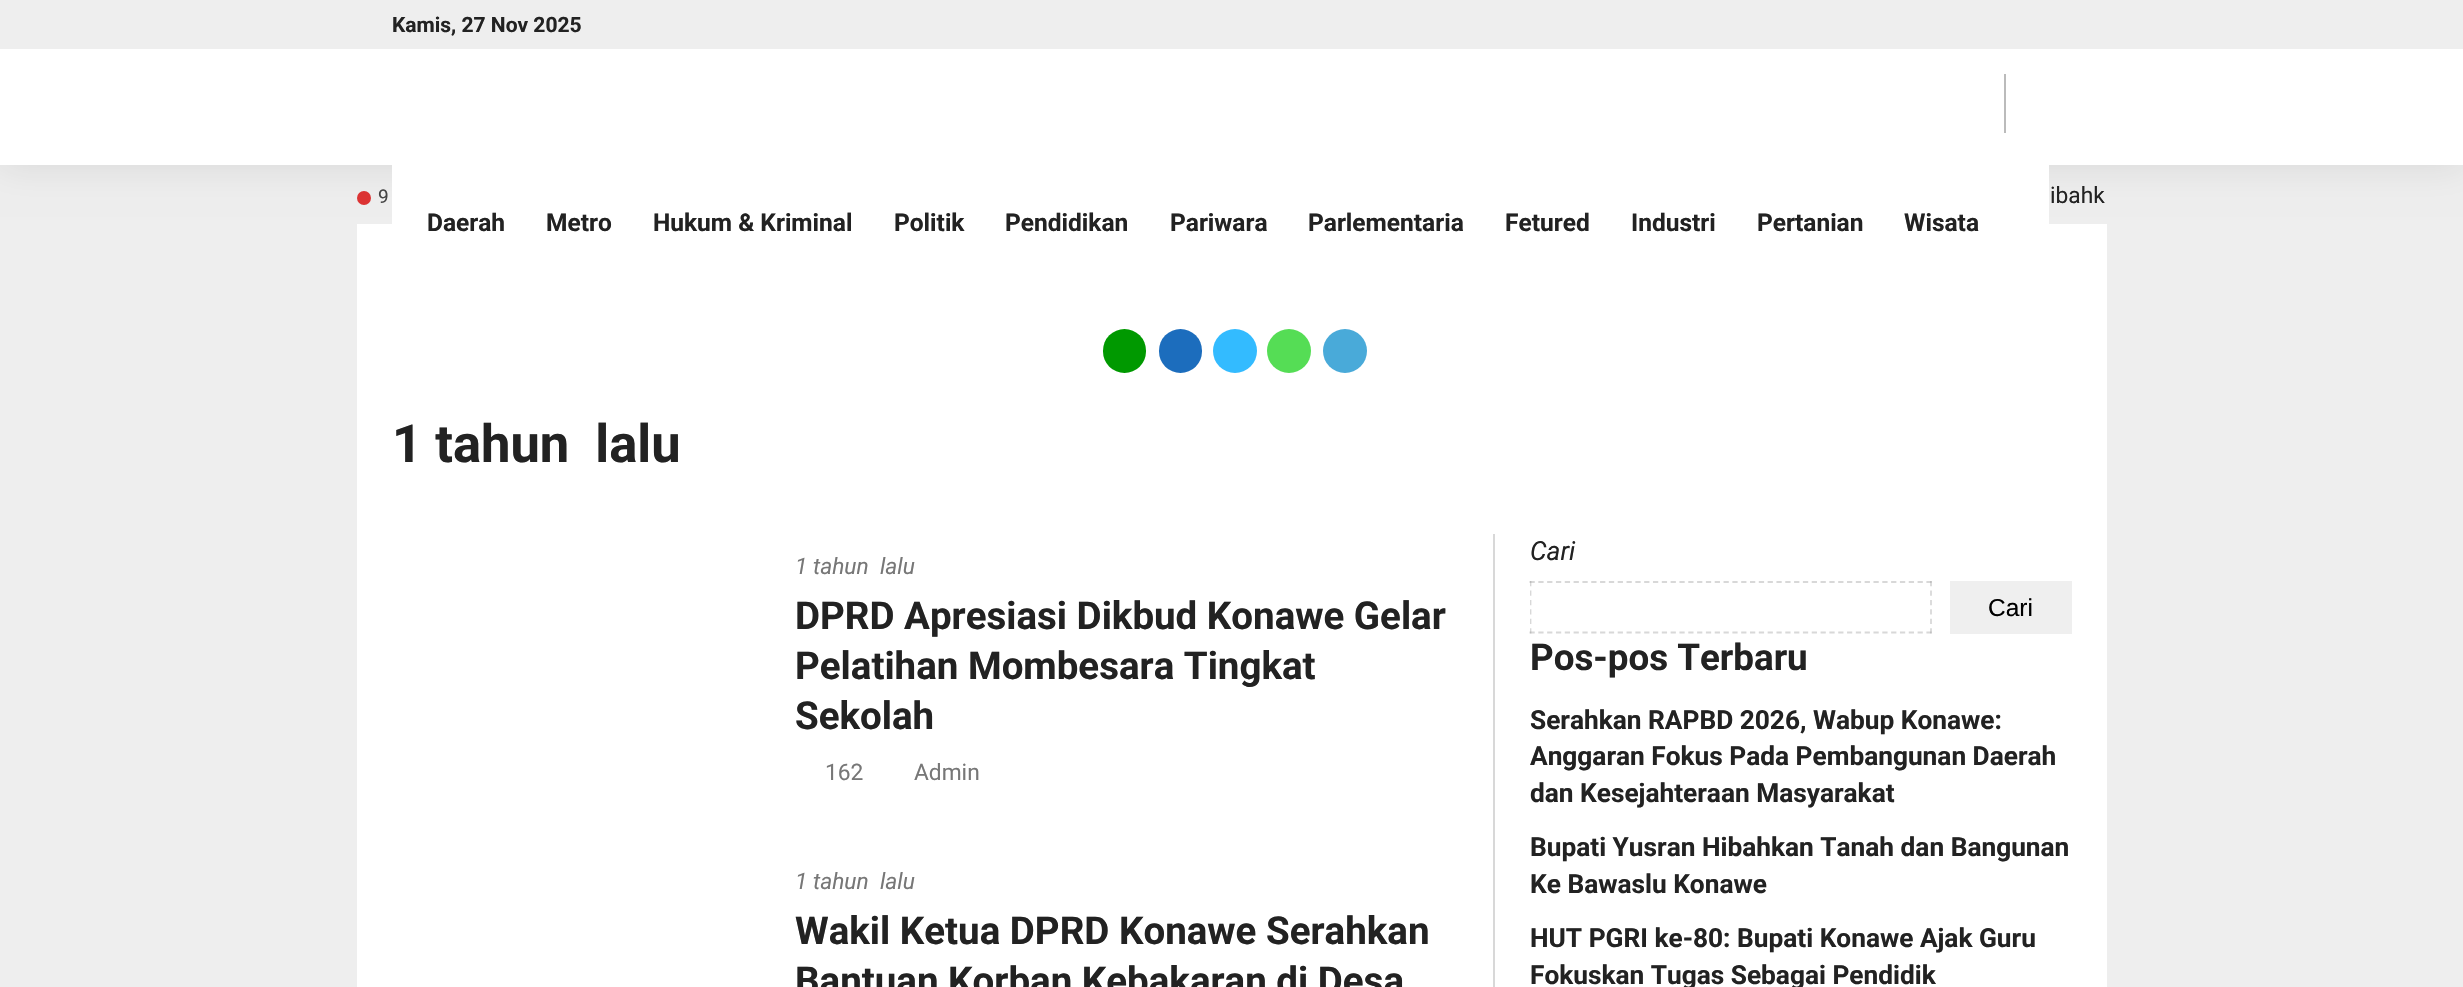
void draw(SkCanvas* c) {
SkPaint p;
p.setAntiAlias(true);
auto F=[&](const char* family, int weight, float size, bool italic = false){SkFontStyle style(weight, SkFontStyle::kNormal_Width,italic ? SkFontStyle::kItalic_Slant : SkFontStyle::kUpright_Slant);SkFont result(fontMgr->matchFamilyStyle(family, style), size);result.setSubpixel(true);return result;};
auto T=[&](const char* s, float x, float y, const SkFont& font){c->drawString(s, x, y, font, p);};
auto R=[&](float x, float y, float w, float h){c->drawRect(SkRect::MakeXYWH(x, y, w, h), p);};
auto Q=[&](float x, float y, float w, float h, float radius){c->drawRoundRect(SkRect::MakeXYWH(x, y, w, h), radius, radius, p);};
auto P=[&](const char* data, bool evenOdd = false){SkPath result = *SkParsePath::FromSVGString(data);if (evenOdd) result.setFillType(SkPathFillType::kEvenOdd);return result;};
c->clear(0xffeeeeee);
p.setColor(0xffffffff);
R(357,224,1750,763);
p.setColor(0xffdd3333);
c->drawCircle(364,198,7,p);
p.setColor(0x1a000000);
p.setMaskFilter(SkMaskFilter::MakeBlur(kNormal_SkBlurStyle, 17.5));
c->drawRect(SkRect::MakeXYWH(0,0,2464,165),p);
p.setMaskFilter(nullptr);
p.setColor(0xffffffff);
R(0,49,2463,116);
p.setColor(0xffeeeeee);
R(0,0,2463,49);
auto f1 = F("Roboto",700,21);
p.setColor(0xff222222);
T("Kamis, 27 Nov 2025",392,32,f1);
p.setColor(0xffbbbbbb);
R(2004,74,2,59);
p.setColor(0xffffffff);
R(392,165,1657,59);
auto f2 = F("Roboto",700,24.5);
p.setColor(0xff222222);
T("Daerah",427,231,f2);
T("Metro",546,231,f2);
T("Hukum & Kriminal",653,231,f2);
T("Politik",894,231,f2);
T("Pendidikan",1005,231,f2);
T("Pariwara",1170,231,f2);
T("Parlementaria",1308,231,f2);
T("Fetured",1505,231,f2);
T("Industri",1631,231,f2);
T("Pertanian",1757,231,f2);
T("Wisata",1904,231,f2);
auto f3 = F("Roboto",400,19);
p.setColor(0xff444444);
T("9",378,203,f3);
auto f4 = F("Roboto",400,22.75);
p.setColor(0xff222222);
T("ibahk",2050,203,f4);
p.setColor(0xff009900);
Q(1103,329,43,44,21.5);
p.setColor(0xff1c6dbd);
Q(1159,329,43,44,21.5);
p.setColor(0xff33bbff);
c->drawCircle(1235,351,22,p);
p.setColor(0xff55dd55);
c->drawCircle(1289,351,22,p);
p.setColor(0xff49aad9);
c->drawCircle(1345,351,22,p);
auto f5 = F("Roboto",700,52.5);
p.setColor(0xff222222);
T("1 tahun  lalu",392,462,f5);
p.setColor(0xffd8d8d8);
R(1493,534,2,453);
auto f6 = F("Roboto",400,22.75,true);
p.setColor(0xff777777);
T("1 tahun  lalu",795,574,f6);
auto f7 = F("Roboto",700,38.5);
p.setColor(0xff222222);
T("DPRD Apresiasi Dikbud Konawe Gelar",795,629,f7);
T("Pelatihan Mombesara Tingkat",795,679,f7);
T("Sekolah",795,729,f7);
p.setColor(0xff777777);
T("162",825,780,f4);
T("Admin",914,780,f4);
T("1 tahun  lalu",795,889,f6);
p.setColor(0xff222222);
T("Wakil Ketua DPRD Konawe Serahkan",795,944,f7);
T("Bantuan Korban Kebakaran di Desa",795,994,f7);
auto f8 = F("Roboto",400,26.25,true);
T("Cari",1530,560,f8);
p.setStroke(true);
p.setStrokeWidth(1.8);
p.setColor(0xffd8d8d8);
p.setPathEffect(SkDashPathEffect::Make({{5.25f,3.57f}}, 0));
c->drawPath(P("M1529.5 582h402.5"),p);
p.setPathEffect(nullptr);
p.setColor(0x4d7d7d7d);
p.setPathEffect(SkDashPathEffect::Make({{5.25f,4.2f}}, 0));
c->drawPath(P("M1931 581v52.5"),p);
p.setPathEffect(nullptr);
p.setPathEffect(SkDashPathEffect::Make({{5.25f,3.57f}}, 0));
c->drawPath(P("M1529.5 632.5h402.5"),p);
p.setPathEffect(nullptr);
c->save();
c->clipRect(SkRect::MakeXYWH(1530,534,542,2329));
p.setPathEffect(SkDashPathEffect::Make({{5.25f,4.2f}}, 0));
c->drawPath(P("M1530.5 581v52.5"),p);
p.setPathEffect(nullptr);
c->restore();
p.setStroke(false);
p.setColor(0xffefefef);
R(1950,581,122,53);
auto f9 = F("Liberation Sans",400,24.5);
p.setColor(0xff000000);
T("Cari",1988,616,f9);
auto f10 = F("Roboto",700,36.75);
p.setColor(0xff222222);
T("Pos-pos Terbaru",1530,670,f10);
auto f11 = F("Roboto",700,26.25);
T("Serahkan RAPBD 2026, Wabup Konawe:",1530,729,f11);
T("Anggaran Fokus Pada Pembangunan Daerah",1530,765,f11);
T("dan Kesejahteraan Masyarakat",1530,802,f11);
T("Bupati Yusran Hibahkan Tanah dan Bangunan",1530,856,f11);
T("Ke Bawaslu Konawe",1530,893,f11);
T("HUT PGRI ke-80: Bupati Konawe Ajak Guru",1530,947,f11);
T("Fokuskan Tugas Sebagai Pendidik",1530,984,f11);
}
